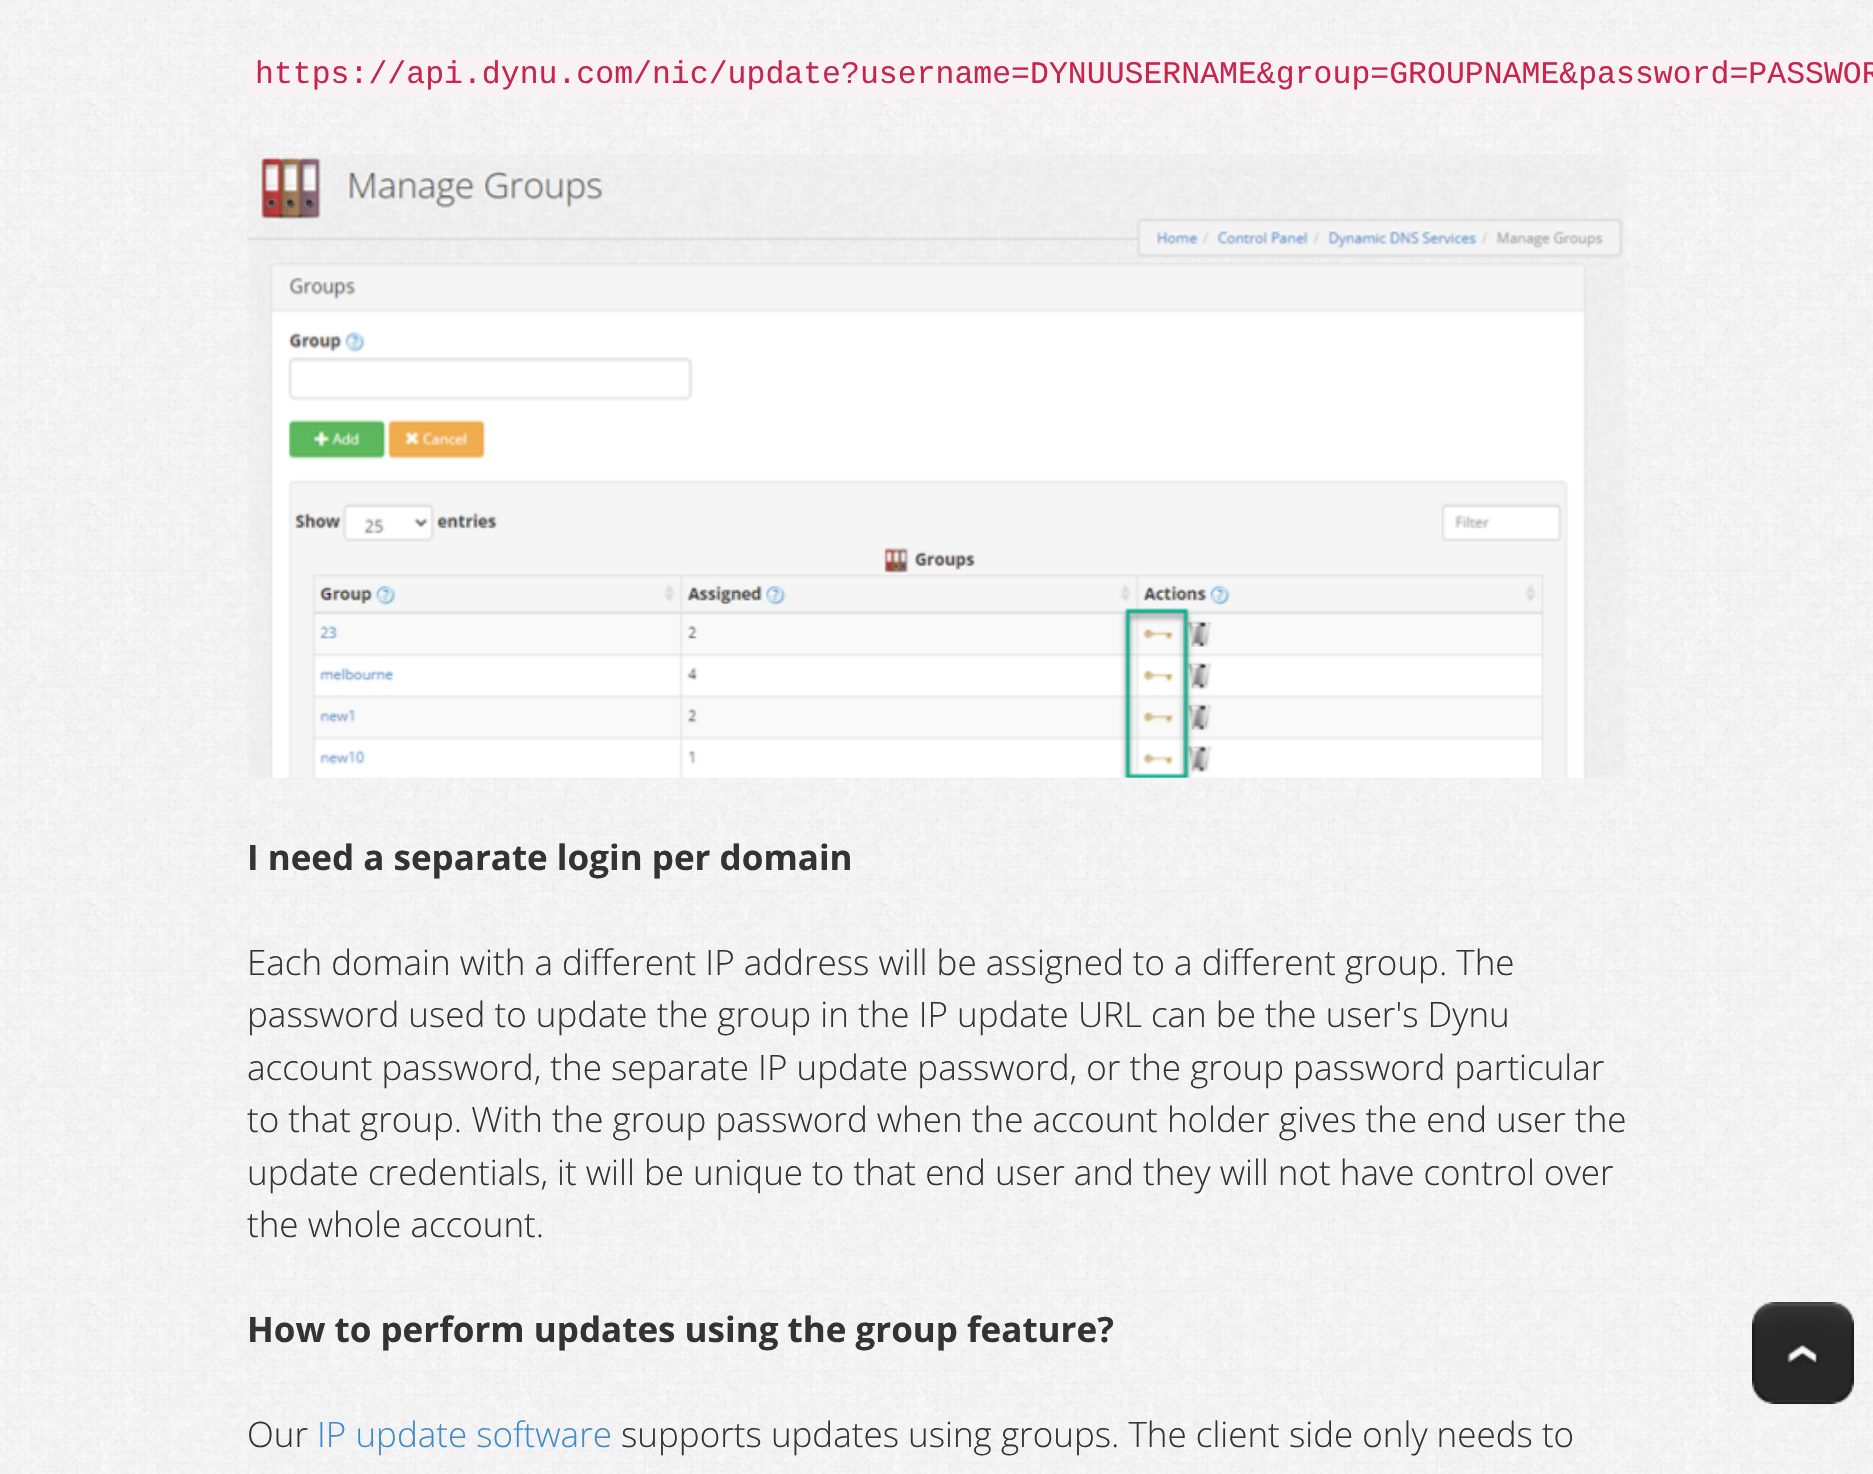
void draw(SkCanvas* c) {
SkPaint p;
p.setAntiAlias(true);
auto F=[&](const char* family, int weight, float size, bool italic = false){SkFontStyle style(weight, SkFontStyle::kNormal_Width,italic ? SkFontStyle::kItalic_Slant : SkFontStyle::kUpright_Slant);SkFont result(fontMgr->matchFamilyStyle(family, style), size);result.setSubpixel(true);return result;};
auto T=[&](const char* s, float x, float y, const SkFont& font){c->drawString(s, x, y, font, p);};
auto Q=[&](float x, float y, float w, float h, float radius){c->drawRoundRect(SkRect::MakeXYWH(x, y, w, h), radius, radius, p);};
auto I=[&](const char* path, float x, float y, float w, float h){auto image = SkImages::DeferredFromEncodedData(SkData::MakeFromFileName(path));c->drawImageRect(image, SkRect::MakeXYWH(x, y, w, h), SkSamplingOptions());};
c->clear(0xffffffff);
I("1.png",0,0,1873,1474);
p.setColor(0xfff9f2f4);
Q(248,54,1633,44,8);
auto f1 = F("Liberation Mono",400,31.5);
p.setColor(0xffc7254e);
T("https://api.dynu.com/nic/update?username=DYNUUSERNAME&group=GROUPNAME&password=PASSWOR",255,83,f1);
I("2.png",247,154,1379,624);
auto f2 = F("Open Sans",700,35);
p.setColor(0xff333333);
T("I need a separate login per domain",247,870,f2);
auto f3 = F("Open Sans",300,35);
T("Each domain with a different IP address will be assigned to a different group. The",247,975,f3);
T("password used to update the group in the IP update URL can be the user's Dynu",247,1027,f3);
T("account password, the separate IP update password, or the group password particular",247,1080,f3);
T("to that group. With the group password when the account holder gives the end user the",247,1132,f3);
T("update credentials, it will be unique to that end user and they will not have control over",247,1185,f3);
T("the whole account.",247,1237,f3);
T("How to perform updates using the group feature?",247,1342,f2);
T("Our",247,1447,f3);
p.setColor(0xff428bca);
T("IP update software",317,1447,f3);
p.setColor(0xff333333);
T("supports updates using groups. The client side only needs to",621,1447,f3);
I("3.png",1752,1302,102,102);
}
